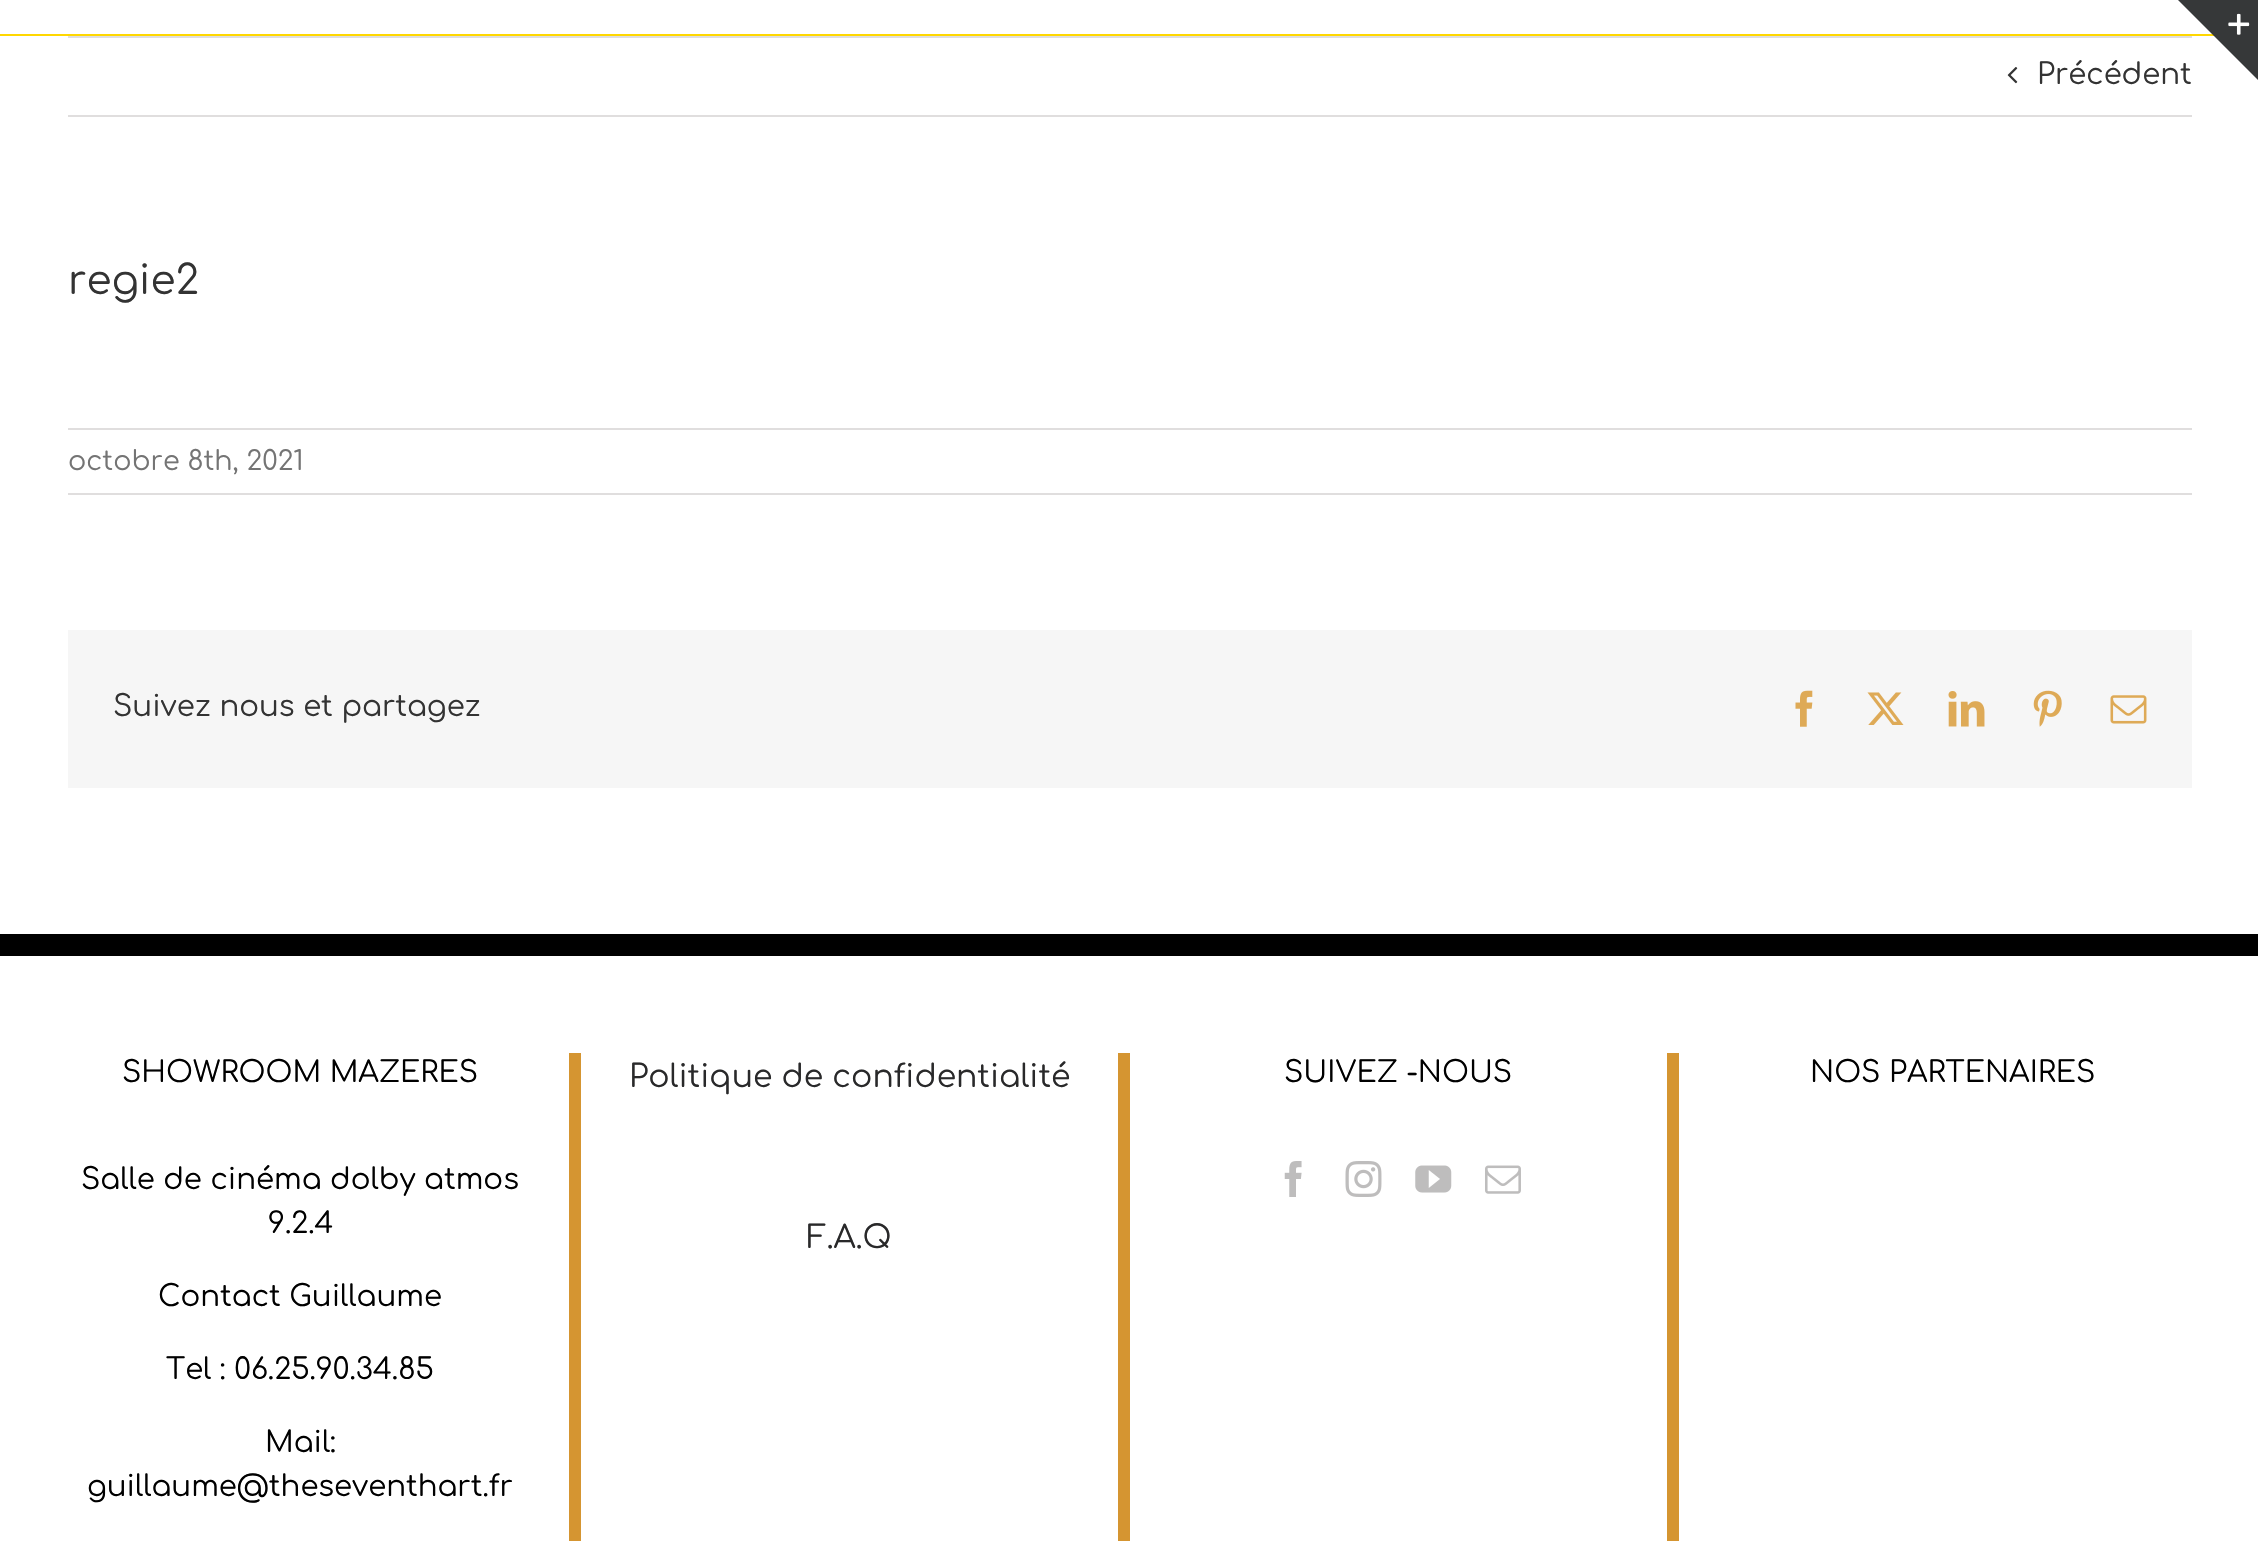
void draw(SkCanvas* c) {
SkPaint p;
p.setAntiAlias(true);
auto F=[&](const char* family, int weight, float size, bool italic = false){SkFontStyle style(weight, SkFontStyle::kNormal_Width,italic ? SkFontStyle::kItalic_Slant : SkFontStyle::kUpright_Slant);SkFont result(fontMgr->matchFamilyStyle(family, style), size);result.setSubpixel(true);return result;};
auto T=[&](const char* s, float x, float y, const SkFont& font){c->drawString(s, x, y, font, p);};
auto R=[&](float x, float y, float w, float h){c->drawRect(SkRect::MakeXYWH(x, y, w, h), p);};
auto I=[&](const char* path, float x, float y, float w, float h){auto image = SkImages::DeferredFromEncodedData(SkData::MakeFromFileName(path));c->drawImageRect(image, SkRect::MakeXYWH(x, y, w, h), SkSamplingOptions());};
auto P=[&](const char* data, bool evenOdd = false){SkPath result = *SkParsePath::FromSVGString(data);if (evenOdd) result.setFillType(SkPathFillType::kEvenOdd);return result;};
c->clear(0xffffffff);
p.setColor(0xffffd700);
R(0,34,2214,2);
p.setColor(0xffe0dede);
R(68,36,2124,2);
auto f1 = F("Comfortaa",400,29.25);
p.setColor(0xff333333);
T("Précédent",2037,84,f1);
p.setColor(0xff363839);
c->drawPath(P("M2178 0h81v81z"),p);
I("1.png",2228,13,22,22);
p.setColor(0xffe0dede);
R(68,115,2124,2);
I("2.png",2007,67,11,17);
auto f2 = F("Comfortaa",400,40.5);
p.setColor(0xff333333);
T("regie2",68,294,f2);
p.setColor(0xffe0dede);
R(68,428,2124,2);
R(68,493,2124,2);
auto f3 = F("Comfortaa",400,27);
p.setColor(0xff747474);
T("octobre 8th, 2021",68,470,f3);
p.setColor(0xfff6f6f6);
R(68,630,2124,158);
p.setColor(0xff333333);
T("Suivez nous et partagez",113,716,f1);
I("3.png",1795,690,18,37);
I("4.png",1867,692,37,33);
I("5.png",1948,691,37,36);
I("6.png",2033,690,29,37);
I("7.png",2110,695,37,29);
p.setColor(0xff000000);
R(0,934,2258,22);
p.setColor(0xffd59531);
R(569,1053,12,488);
p.setColor(0xff000000);
T("SHOWROOM MAZERES",122,1082,f1);
T("Salle de cinéma dolby atmos",81,1189,f1);
T("9.2.4",268,1233,f1);
T("Contact Guillaume",158,1306,f1);
T("Tel : 06.25.90.34.85",166,1379,f1);
T("Mail:",265,1452,f1);
T("guillaume@theseventhart.fr",87,1496,f1);
p.setColor(0xffd59531);
R(1118,1053,12,488);
auto f4 = F("Comfortaa",400,31.5);
p.setColor(0xff29292a);
T("Politique de confidentialité",629,1087,f4);
T("F.A.Q",807,1248,f4);
p.setColor(0xffd59531);
R(1667,1053,12,488);
p.setColor(0xff000000);
T("SUIVEZ -NOUS",1284,1082,f1);
I("8.png",1284,1161,18,36);
I("9.png",1345,1161,37,36);
I("10.png",1415,1165,37,28);
I("11.png",1485,1165,36,29);
T("NOS PARTENAIRES",1810,1082,f1);
}
